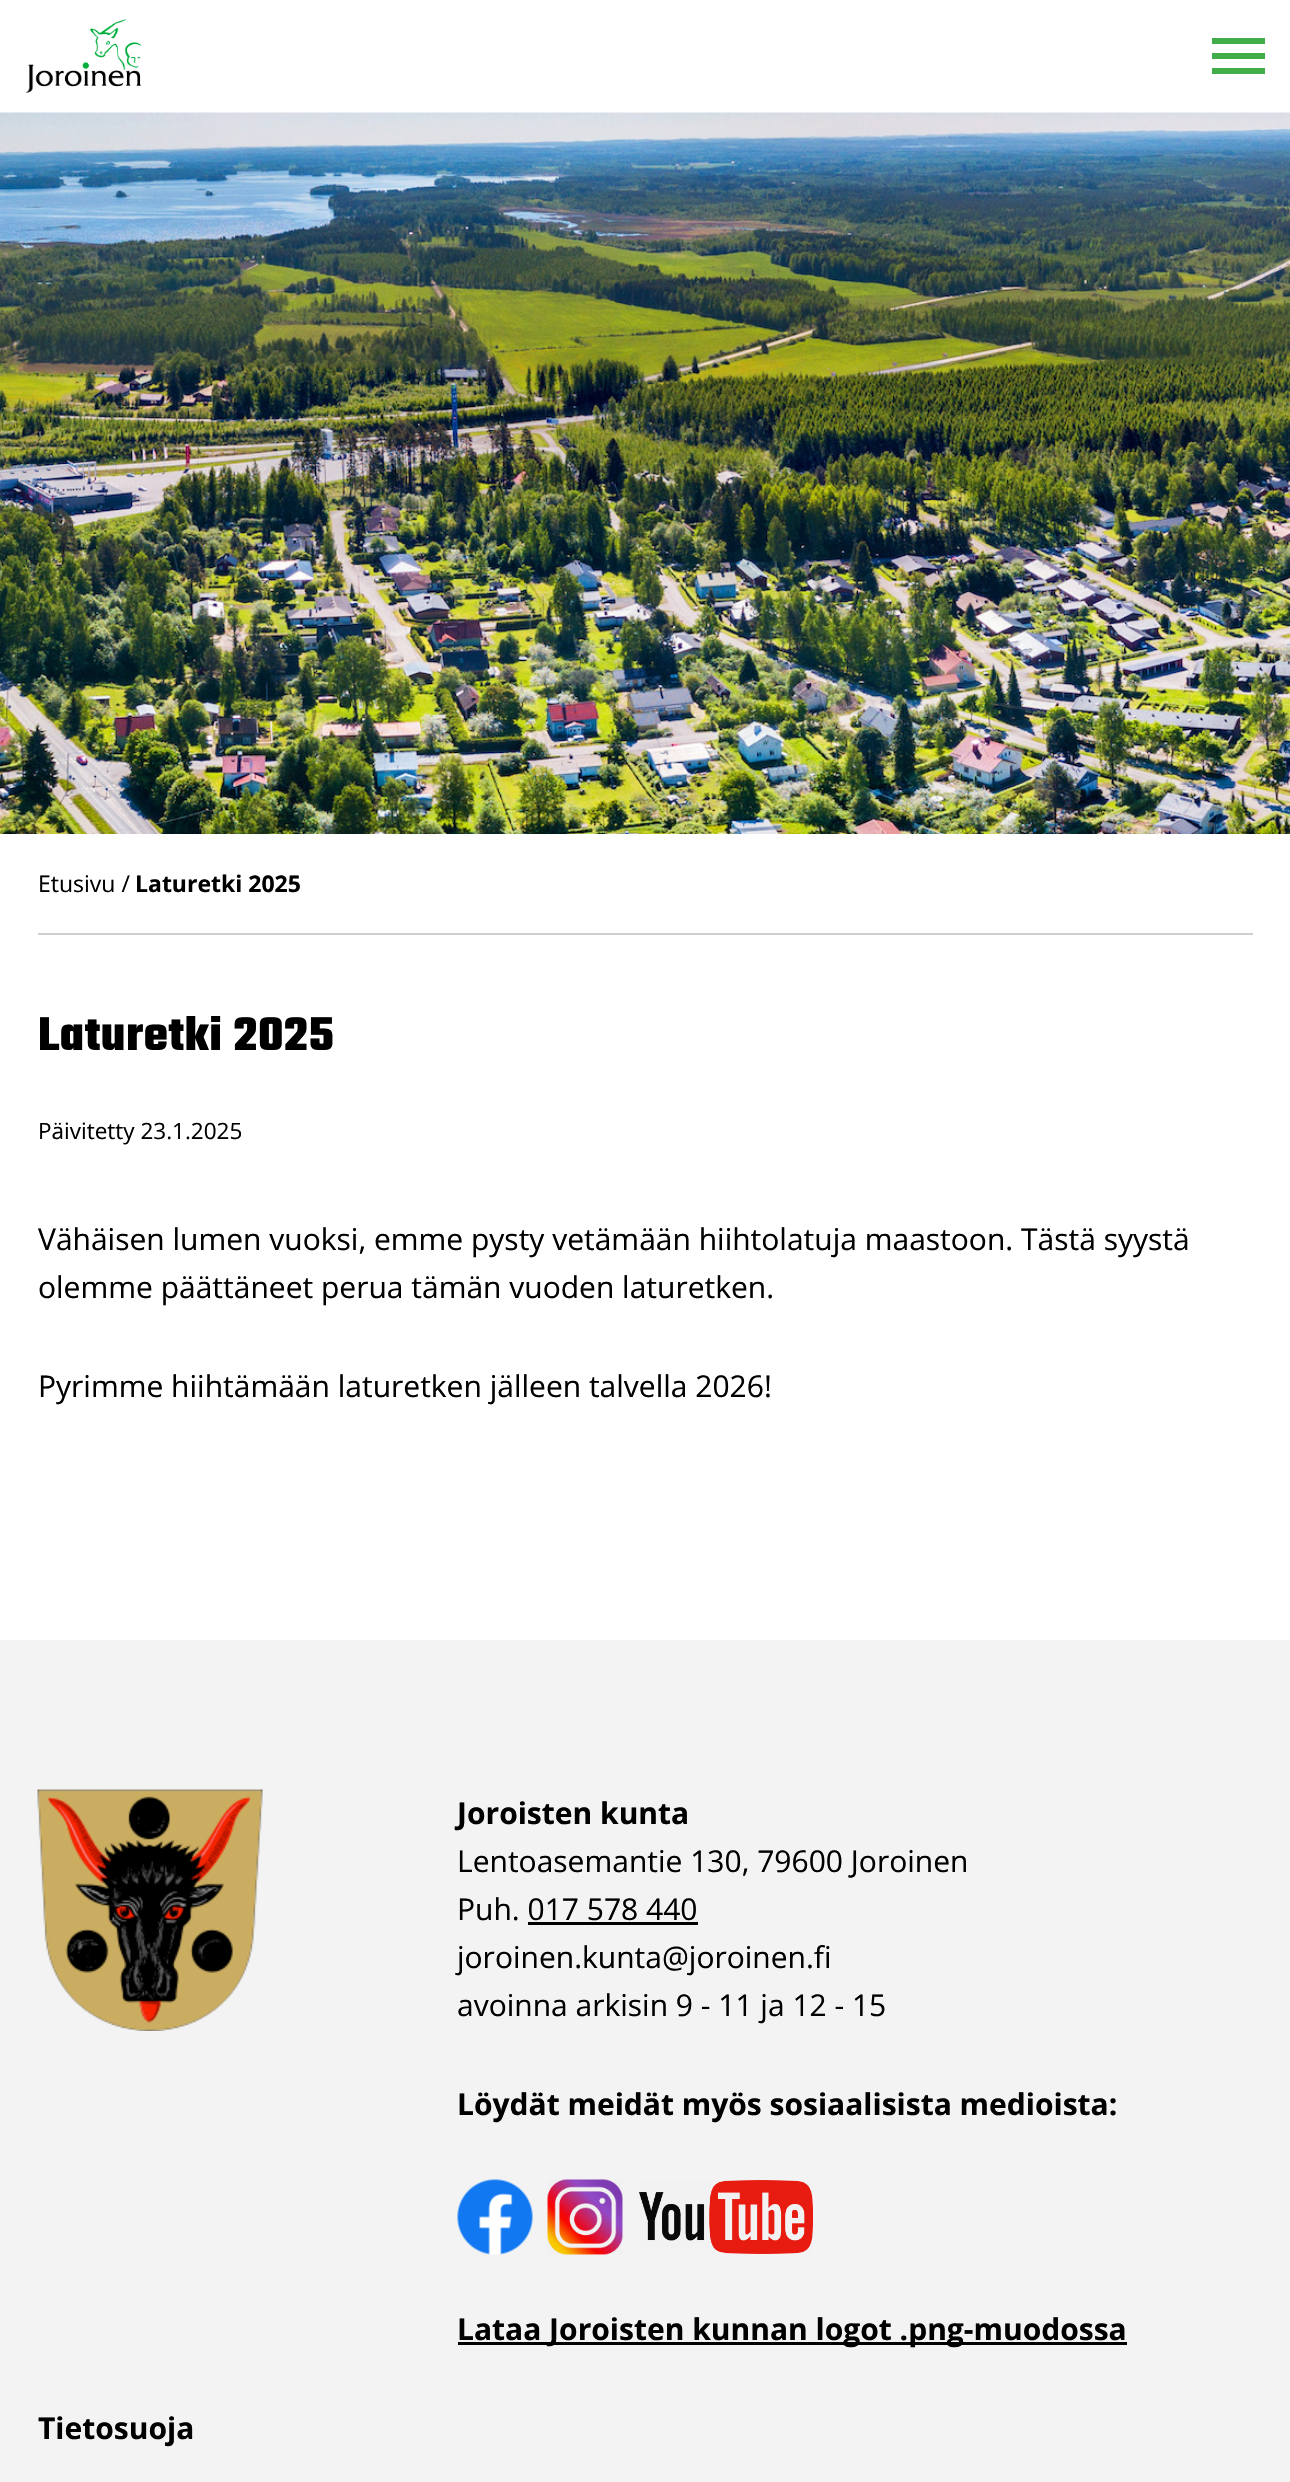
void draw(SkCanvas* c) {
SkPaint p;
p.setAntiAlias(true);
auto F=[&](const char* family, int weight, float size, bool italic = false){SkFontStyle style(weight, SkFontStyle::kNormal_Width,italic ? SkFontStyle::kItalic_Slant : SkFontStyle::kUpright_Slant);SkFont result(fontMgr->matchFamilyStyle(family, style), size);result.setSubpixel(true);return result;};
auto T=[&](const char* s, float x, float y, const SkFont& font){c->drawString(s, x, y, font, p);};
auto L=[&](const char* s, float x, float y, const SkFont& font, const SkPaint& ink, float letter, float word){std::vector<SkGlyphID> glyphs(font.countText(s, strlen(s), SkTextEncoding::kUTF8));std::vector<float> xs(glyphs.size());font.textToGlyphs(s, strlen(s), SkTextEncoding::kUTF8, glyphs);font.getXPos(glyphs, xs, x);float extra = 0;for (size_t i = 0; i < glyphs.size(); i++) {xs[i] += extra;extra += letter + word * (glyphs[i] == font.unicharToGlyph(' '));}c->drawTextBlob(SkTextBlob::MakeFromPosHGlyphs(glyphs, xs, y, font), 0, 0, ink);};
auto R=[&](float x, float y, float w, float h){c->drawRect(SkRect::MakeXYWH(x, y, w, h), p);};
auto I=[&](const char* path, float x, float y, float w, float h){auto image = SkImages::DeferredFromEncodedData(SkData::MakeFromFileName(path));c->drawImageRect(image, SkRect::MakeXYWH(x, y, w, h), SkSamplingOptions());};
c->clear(0xffffffff);
I("1.png",25,19,117,74);
p.setColor(0xff41ad49);
R(1212,38,53,6);
R(1212,53,53,6);
R(1212,68,53,6);
I("2.png",0,112,1290,722);
p.setColor(0xffcfcfcf);
R(38,933,1215,2);
auto f1 = F("Open Sans",400,23);
p.setColor(0xff000000);
T("Etusivu /",38,892,f1);
auto f2 = F("Open Sans",700,23);
T("Laturetki 2025",135,892,f2);
auto f3 = F("Teko",700,51);
L("Laturetki 2025",38,1050,f3,p,.6,0);
auto f4 = F("Open Sans",400,22.5);
T("Päivitetty 23.1.2025",38,1139,f4);
auto f5 = F("Open Sans",400,30);
T("Vähäisen lumen vuoksi, emme pysty vetämään hiihtolatuja maastoon. Tästä syystä",38,1250,f5);
T("olemme päättäneet perua tämän vuoden laturetken.",38,1298,f5);
T("Pyrimme hiihtämään laturetken jälleen talvella 2026!",38,1397,f5);
p.setColor(0xfff3f3f3);
R(0,1640,1290,842);
I("3.png",37,1789,226,242);
auto f6 = F("Open Sans",700,30);
p.setColor(0xff000000);
T("Joroisten kunta",457,1824,f6);
T("Lentoasemantie 130, 79600 Joroinen",457,1872,f5);
T("Puh. 017 578 440",457,1920,f5);
R(528,1922,170,3);
T("joroinen.kunta@joroinen.fi",457,1968,f5);
T("avoinna arkisin 9 - 11 ja 12 - 15",457,2016,f5);
T("Löydät meidät myös sosiaalisista medioista:",457,2115,f6);
I("4.png",457,2179,76,76);
I("5.png",547,2179,76,76);
I("6.png",639,2180,174,74);
R(458,2342,669,3);
T("Lataa Joroisten kunnan logot .png-muodossa",457,2340,f6);
T("Tietosuoja",38,2439,f6);
}
